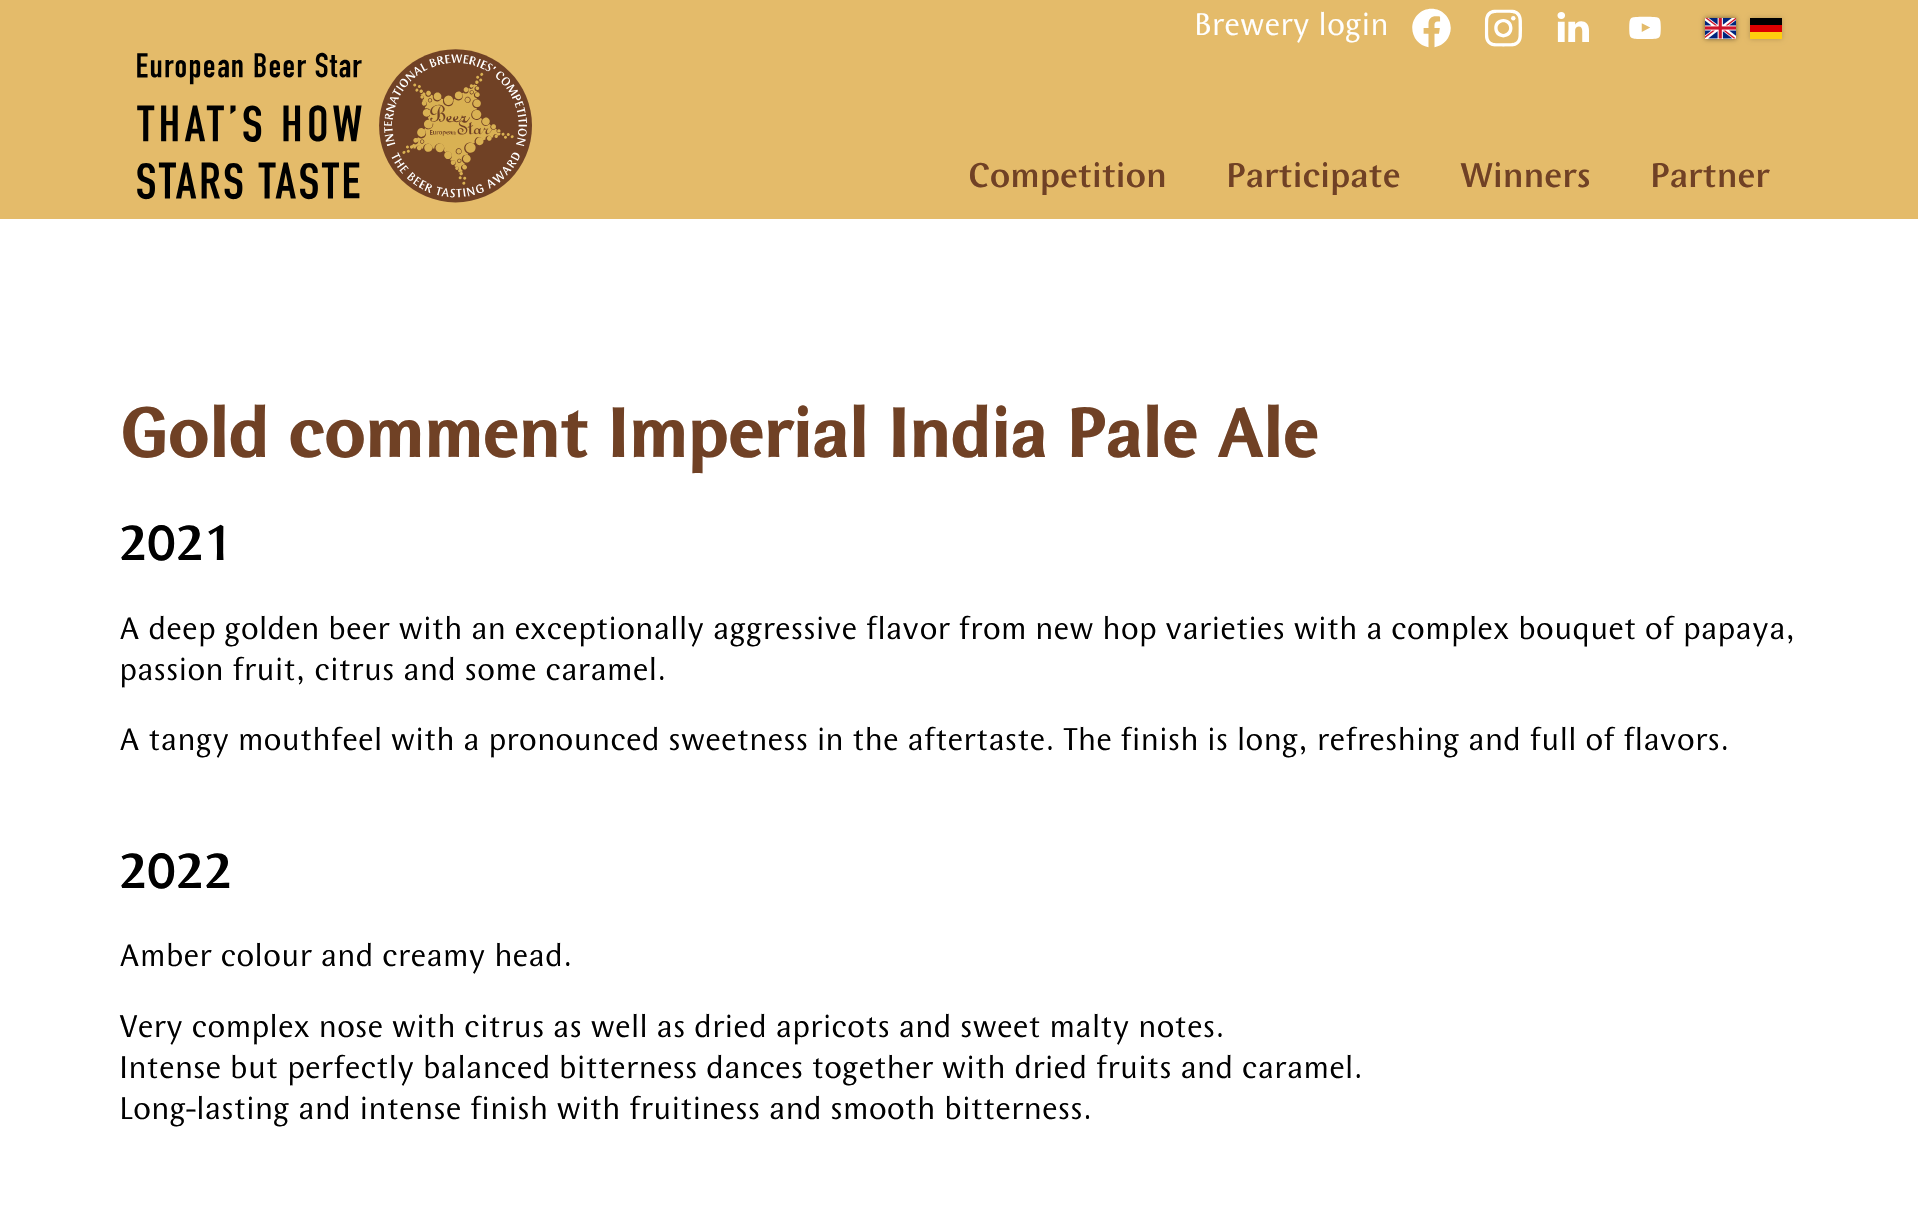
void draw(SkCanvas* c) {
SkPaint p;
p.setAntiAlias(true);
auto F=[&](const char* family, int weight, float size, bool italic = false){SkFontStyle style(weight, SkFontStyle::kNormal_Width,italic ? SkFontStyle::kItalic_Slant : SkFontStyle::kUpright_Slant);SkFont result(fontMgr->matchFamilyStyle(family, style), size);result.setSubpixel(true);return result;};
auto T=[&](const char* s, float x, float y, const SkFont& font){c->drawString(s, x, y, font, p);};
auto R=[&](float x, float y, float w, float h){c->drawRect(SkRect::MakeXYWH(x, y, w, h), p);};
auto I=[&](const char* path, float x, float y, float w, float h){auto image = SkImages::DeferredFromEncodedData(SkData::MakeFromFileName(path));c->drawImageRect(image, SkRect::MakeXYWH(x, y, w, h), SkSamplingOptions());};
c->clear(0xffffffff);
p.setColor(0xffe4bb6a);
R(0,0,1918,219);
auto f1 = F("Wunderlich",400,32.73);
p.setColor(0xffffffff);
T("Brewery login",1194,35,f1);
I("1.png",1412,8,39,40);
I("2.png",1484,9,38,38);
I("3.png",1557,12,32,30);
I("4.png",1629,16,32,23);
p.setColor(0x80000000);
p.setMaskFilter(SkMaskFilter::MakeBlur(kNormal_SkBlurStyle, 2.5));
c->drawRect(SkRect::MakeXYWH(1705,18,31,21),p);
p.setMaskFilter(nullptr);
p.setColor(0xffffffff);
R(1705,18,31,21);
I("5.png",1705,18,31,21);
p.setColor(0x33000000);
p.setMaskFilter(SkMaskFilter::MakeBlur(kNormal_SkBlurStyle, 2.5));
c->drawRect(SkRect::MakeXYWH(1750,18,32,21),p);
p.setMaskFilter(nullptr);
p.setColor(0xff000000);
R(1750,18,32,7);
p.setColor(0xffdd0000);
R(1750,25,32,7);
p.setColor(0xffffce0f);
R(1750,32,32,7);
I("6.png",137,49,395,154);
auto f2 = F("Wunderlich",500,35.75);
p.setColor(0xff704125);
T("Competition",968,187,f2);
T("Participate",1226,187,f2);
T("Winners",1460,187,f2);
T("Partner",1650,187,f2);
auto f3 = F("Wunderlich",700,71.4);
T("Gold comment Imperial India Pale Ale",119,457,f3);
auto f4 = F("Wunderlich",500,57);
p.setColor(0xff000000);
T("2021",119,560,f4);
T("A deep golden beer with an exceptionally aggressive flavor from new hop varieties with a complex bouquet of papaya,",119,639,f1);
T("passion fruit, citrus and some caramel.",119,680,f1);
T("A tangy mouthfeel with a pronounced sweetness in the aftertaste. The finish is long, refreshing and full of flavors.",119,750,f1);
T("2022",119,888,f4);
T("Amber colour and creamy head.",119,966,f1);
T("Very complex nose with citrus as well as dried apricots and sweet malty notes.",119,1037,f1);
T("Intense but perfectly balanced bitterness dances together with dried fruits and caramel.",119,1078,f1);
T("Long-lasting and intense finish with fruitiness and smooth bitterness.",119,1119,f1);
}
